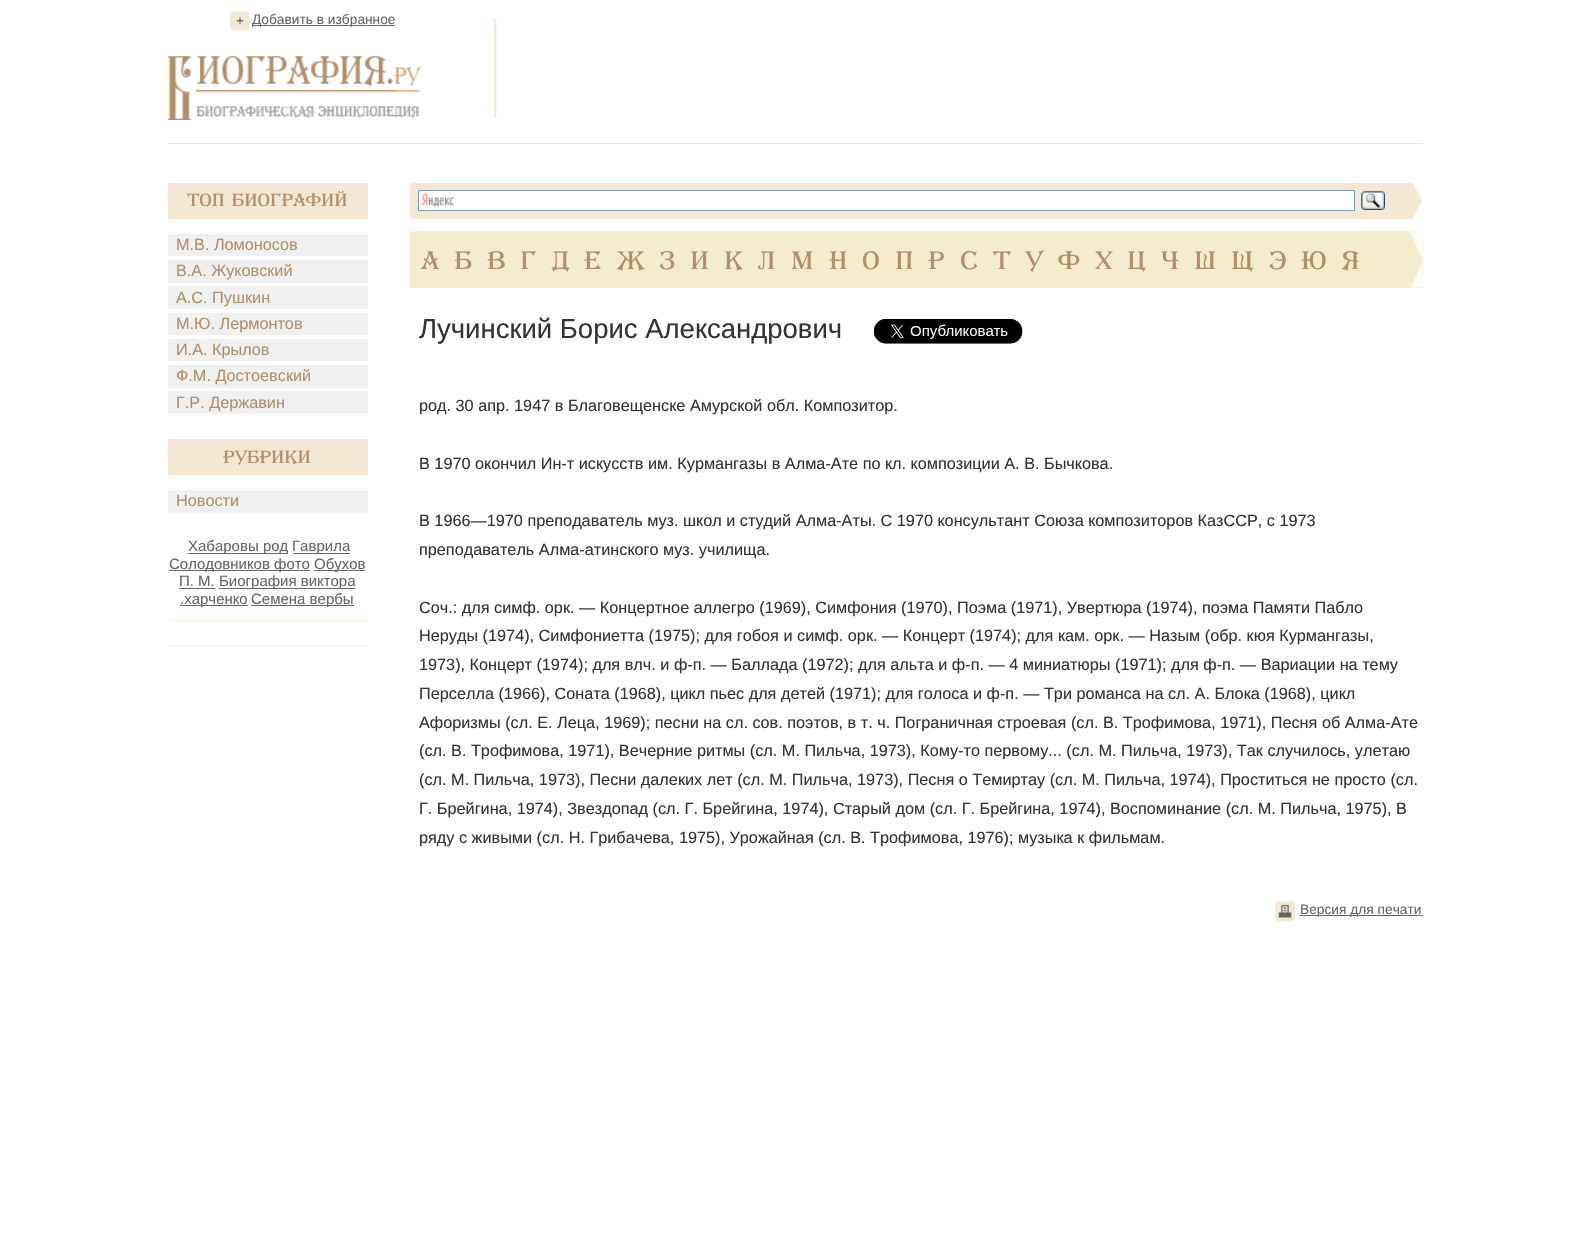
void draw(SkCanvas* c) {
SkPaint p;
p.setAntiAlias(true);
auto F=[&](const char* family, int weight, float size, bool italic = false){SkFontStyle style(weight, SkFontStyle::kNormal_Width,italic ? SkFontStyle::kItalic_Slant : SkFontStyle::kUpright_Slant);SkFont result(fontMgr->matchFamilyStyle(family, style), size);result.setSubpixel(true);return result;};
auto T=[&](const char* s, float x, float y, const SkFont& font){c->drawString(s, x, y, font, p);};
auto R=[&](float x, float y, float w, float h){c->drawRect(SkRect::MakeXYWH(x, y, w, h), p);};
auto I=[&](const char* path, float x, float y, float w, float h){auto image = SkImages::DeferredFromEncodedData(SkData::MakeFromFileName(path));c->drawImageRect(image, SkRect::MakeXYWH(x, y, w, h), SkSamplingOptions());};
auto P=[&](const char* data, bool evenOdd = false){SkPath result = *SkParsePath::FromSVGString(data);if (evenOdd) result.setFillType(SkPathFillType::kEvenOdd);return result;};
c->clear(0xffffffff);
p.setColor(0xfff4e9d5);
R(168,143,1255,1);
I("1.png",230,11,20,19);
p.setColor(0xff666666);
R(253,25,142,1);
auto f1 = F("Liberation Sans",400,13.75);
T("Добавить в избранное",252,24,f1);
I("2.png",493,17,4,102);
I("3.png",167,56,256,64);
p.setColor(0xfff4e8d4);
R(168,183,200,36);
auto f2 = F("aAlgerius",400,17.5);
p.setColor(0xffb18f6c);
T("Топ Биографий",187,206,f2);
p.setColor(0xfff0f0f0);
R(168,234,200,22);
auto f3 = F("Liberation Sans",400,16.25);
p.setColor(0xffb18f6c);
T("М.В. Ломоносов",176,250,f3);
p.setColor(0xfff0f0f0);
R(168,260,200,23);
p.setColor(0xffb18f6c);
T("В.А. Жуковский",176,276,f3);
p.setColor(0xfff0f0f0);
R(168,286,200,23);
p.setColor(0xffb18f6c);
T("А.С. Пушкин",176,303,f3);
p.setColor(0xfff0f0f0);
R(168,313,200,22);
p.setColor(0xffb18f6c);
T("М.Ю. Лермонтов",176,329,f3);
p.setColor(0xfff0f0f0);
R(168,339,200,22);
p.setColor(0xffb18f6c);
T("И.А. Крылов",176,355,f3);
p.setColor(0xfff0f0f0);
R(168,365,200,23);
p.setColor(0xffb18f6c);
T("Ф.М. Достоевский",176,381,f3);
p.setColor(0xfff0f0f0);
R(168,391,200,23);
p.setColor(0xffb18f6c);
T("Г.Р. Державин",176,408,f3);
p.setColor(0xfff4e8d4);
R(168,439,200,36);
p.setColor(0xffb18f6c);
T("Рубрики",223,463,f2);
p.setColor(0xfff0f0f0);
R(168,490,200,23);
p.setColor(0xffb18f6c);
T("Новости",176,506,f3);
p.setColor(0xfff7eedf);
R(168,620,200,1);
p.setColor(0xff666666);
R(188,553,100,1);
auto f4 = F("Liberation Sans",400,15);
T("Хабаровы род",188,551,f4);
R(293,553,57,1);
T("Гаврила",292,551,f4);
R(169,570,141,1);
T("Солодовников фото",169,569,f4);
R(314,570,51,1);
T("Обухов",314,569,f4);
T("П. М.",179,586,f4);
R(179,588,36,1);
R(219,588,136,1);
T("Биография виктора",219,586,f4);
R(180,605,68,1);
T(".харченко",180,604,f4);
R(251,605,103,1);
T("Семена вербы",251,604,f4);
p.setColor(0xfff7eedf);
R(168,646,200,1);
p.setColor(0xfff4e8d4);
R(410,183,975,36);
p.setColor(0xffffffff);
R(419,191,935,19);
I("4.png",421,193,33,15);
p.setStroke(true);
p.setStrokeWidth(1);
p.setColor(0xff7f9db9);
c->drawRect(SkRect::MakeXYWH(418.5,190.5,936,20),p);
I("5.png",1361,191,24,19);
c->save();
c->clipRect(SkRect::MakeXYWH(1385,183,38,36));
p.setStroke(false);
p.setColor(0xfff4e8d4);
c->drawPath(P("M1385 275v-147l37 73z"),p);
c->restore();
p.setColor(0xfff5ecce);
R(410,231,1013,57);
I("6.png",1408,231,15,57);
auto f5 = F("aAlgerius",400,25);
p.setColor(0xffb18f6c);
T("А",421,269,f5);
T("Б",454,269,f5);
T("В",487,269,f5);
T("Г",520,269,f5);
T("Д",552,269,f5);
T("Е",584,269,f5);
T("Ж",617,269,f5);
T("З",659,269,f5);
T("И",690,269,f5);
T("К",724,269,f5);
T("Л",758,269,f5);
T("М",791,269,f5);
T("Н",829,269,f5);
T("О",862,269,f5);
T("П",895,269,f5);
T("Р",928,269,f5);
T("С",960,269,f5);
T("Т",993,269,f5);
T("У",1025,269,f5);
T("Ф",1058,269,f5);
T("Х",1095,269,f5);
T("Ц",1127,269,f5);
T("Ч",1161,269,f5);
T("Ш",1194,269,f5);
T("Щ",1231,269,f5);
T("Э",1269,269,f5);
T("Ю",1301,269,f5);
T("Я",1342,269,f5);
auto f6 = F("Liberation Sans",400,27.5);
p.setColor(0xff333333);
T("Лучинский Борис Александрович",419,338,f6);
I("7.png",874,319,149,25);
T("род. 30 апр. 1947 в Благовещенске Амурской обл. Композитор.",419,411,f3);
T("В 1970 окончил Ин-т искусств им. Курмангазы в Алма-Ате по кл. композиции А. В. Бычкова.",419,469,f3);
T("В 1966—1970 преподаватель муз. школ и студий Алма-Аты. С 1970 консультант Союза композиторов КазССР, с 1973",419,526,f3);
T("преподаватель Алма-атинского муз. училища.",419,555,f3);
T("Соч.: для симф. оpк. — Концертное аллегро (1969), Симфония (1970), Поэма (1971), Увертюра (1974), поэма Памяти Пабло",419,613,f3);
T("Неруды (1974), Симфониетта (1975); для гобоя и симф. орк. — Концерт (1974); для кам. орк. — Назым (обр. кюя Курмангазы,",419,641,f3);
T("1973), Концерт (1974); для влч. и ф-п. — Баллада (1972); для альта и ф-п. — 4 миниатюры (1971); для ф-п. — Вариации на тему",419,670,f3);
T("Перселла (1966), Соната (1968), цикл пьес для детей (1971); для голоса и ф-п. — Три романса на сл. А. Блока (1968), цикл",419,699,f3);
T("Афоризмы (сл. Е. Леца, 1969); песни на сл. сов. поэтов, в т. ч. Пограничная строевая (сл. В. Трофимова, 1971), Песня об Алма-Ате",419,728,f3);
T("(сл. В. Трофимова, 1971), Вечерние ритмы (сл. М. Пильча, 1973), Кому-то первому... (сл. М. Пильча, 1973), Так случилось, улетаю",419,756,f3);
T("(сл. М. Пильча, 1973), Песни далеких лет (сл. М. Пильча, 1973), Песня о Темиртау (сл. М. Пильча, 1974), Проститься не просто (сл.",419,785,f3);
T("Г. Брейгина, 1974), Звездопад (сл. Г. Брейгина, 1974), Старый дом (сл. Г. Брейгина, 1974), Воспоминание (сл. М. Пильча, 1975), В",419,814,f3);
T("ряду с живыми (сл. Н. Грибачева, 1975), Урожайная (сл. В. Трофимова, 1976); музыка к фильмам.",419,843,f3);
I("8.png",1275,901,20,21);
p.setColor(0xff666666);
R(1300,915,123,1);
T("Версия для печати",1300,914,f1);
}
